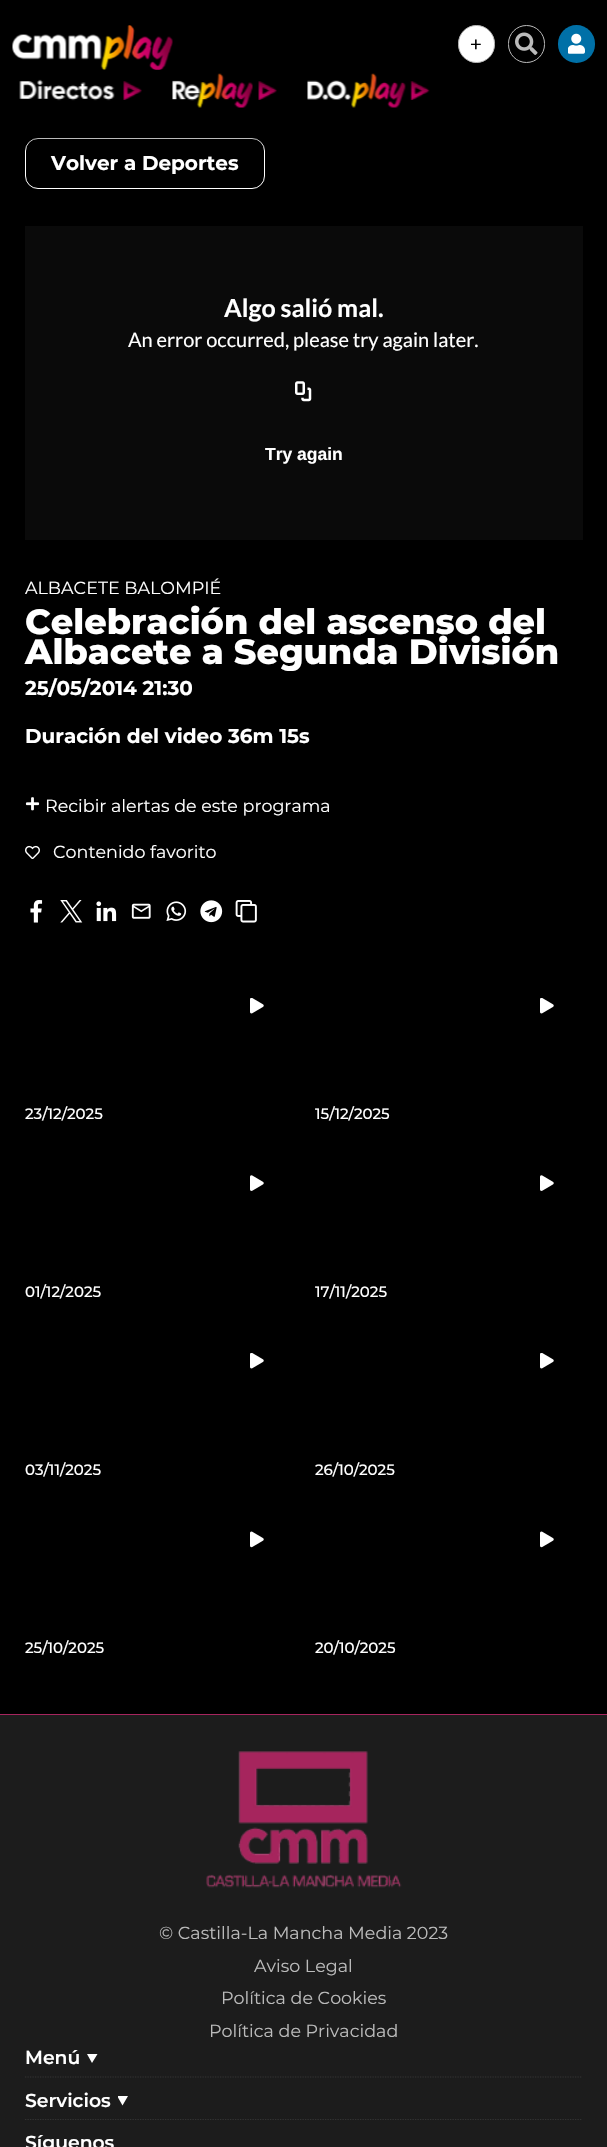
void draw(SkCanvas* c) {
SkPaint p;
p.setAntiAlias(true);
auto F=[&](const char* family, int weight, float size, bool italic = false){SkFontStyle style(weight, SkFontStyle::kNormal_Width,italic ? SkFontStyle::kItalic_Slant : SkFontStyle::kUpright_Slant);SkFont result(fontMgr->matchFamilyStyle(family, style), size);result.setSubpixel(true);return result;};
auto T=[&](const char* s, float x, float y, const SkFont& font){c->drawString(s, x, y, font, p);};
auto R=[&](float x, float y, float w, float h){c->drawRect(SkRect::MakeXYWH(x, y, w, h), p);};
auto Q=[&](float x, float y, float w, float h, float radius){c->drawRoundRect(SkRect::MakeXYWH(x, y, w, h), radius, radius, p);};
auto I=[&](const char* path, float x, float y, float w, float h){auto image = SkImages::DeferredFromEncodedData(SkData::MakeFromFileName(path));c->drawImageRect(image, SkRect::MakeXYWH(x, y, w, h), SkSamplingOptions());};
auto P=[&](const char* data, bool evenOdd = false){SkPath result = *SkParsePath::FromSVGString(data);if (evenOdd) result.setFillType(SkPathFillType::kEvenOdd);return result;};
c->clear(0xff000000);
p.setStroke(true);
p.setStrokeWidth(1);
p.setColor(0xffffffff);
c->drawRoundRect(SkRect::MakeXYWH(25.5,138.5,239,50),12.5,12.5,p);
p.setStroke(false);
{
const SkColor colors[] = {0x00000000,0xe8000000,0xff000000};
const float stops[] = {0,.28,1};
const SkPoint ends[] = {{304,151}, {304,0}};
p.setShader(SkGradientShader::MakeLinear(ends, colors, stops, 3, SkTileMode::kClamp));
p.setAlpha(255);
}
R(25,138,240,12);
I("1.png",12,25,161,45);
p.setShader(nullptr);
p.setColor(0xffffffff);
c->drawRoundRect(SkRect::MakeXYWH(458.5,25.5,36,37),18,18,p);
p.setStroke(true);
p.setColor(0xffbababa);
c->drawRoundRect(SkRect::MakeXYWH(458.5,25.5,36,37),18,18,p);
auto f1 = F("Liberation Sans",400,20);
p.setStroke(false);
p.setColor(0xff000000);
T("+",470,51,f1);
p.setStroke(true);
p.setColor(0xffbababa);
c->drawRoundRect(SkRect::MakeXYWH(508.5,25.5,36,37),18,18,p);
I("2.png",515,32,23,23);
p.setStroke(false);
p.setColor(0xff0070a7);
Q(558,25,37,38,18.5);
I("3.png",568,33,17,21);
I("4.png",19,79,96,22);
I("5.png",123,81,19,19);
I("6.png",172,73,81,35);
I("5.png",258,81,19,19);
I("7.png",307,73,99,35);
I("8.png",410,81,20,19);
auto f2 = F("Montserrat",700,20);
p.setColor(0xffffffff);
T("Volver a Deportes",51,170,f2);
p.setColor(0xff0a0a0a);
R(25,226,558,314);
auto f3 = F("Lato",700,25);
p.setColor(0xffffffff);
T("Algo salió mal.",224,317,f3);
auto f4 = F("Lato",400,20);
T("An error occurred, please try again later.",128,347,f4);
I("9.png",295,381,17,21);
auto f5 = F("Liberation Sans",700,17.5);
T("Try again",265,460,f5);
auto f6 = F("Montserrat",400,17.5);
T("ALBACETE BALOMPIÉ",25,594,f6);
auto f7 = F("Montserrat",800,35);
T("Celebración del ascenso del",25,634,f7);
T("Albacete a Segunda División",25,664,f7);
T("25/05/2014 21:30",25,695,f2);
T("Duración del video",25,743,f2);
T("36m 15s",228,743,f2);
I("10.png",25,797,15,14);
T("Recibir alertas de este programa",45,812,f6);
I("11.png",25,845,15,14);
T("Contenido favorito",53,858,f6);
I("12.png",30,900,13,23);
I("13.png",60,900,23,23);
I("14.png",96,901,21,21);
I("15.png",131,903,20,16);
I("16.png",166,901,21,20);
I("17.png",200,900,23,23);
I("18.png",235,900,22,23);
I("19.png",250,998,14,16);
auto f8 = F("Montserrat",500,15);
T("23/12/2025",25,1119,f8);
I("19.png",540,998,14,16);
T("15/12/2025",315,1119,f8);
I("20.png",250,1175,14,16);
T("01/12/2025",25,1297,f8);
I("20.png",540,1175,14,16);
T("17/11/2025",315,1297,f8);
I("21.png",250,1353,14,16);
T("03/11/2025",25,1475,f8);
I("21.png",540,1353,14,16);
T("26/10/2025",315,1475,f8);
I("22.png",250,1531,14,17);
T("25/10/2025",25,1653,f8);
I("22.png",540,1531,14,17);
T("20/10/2025",315,1653,f8);
p.setColor(0xff1c1c1c);
R(0,1715,607,432);
p.setColor(0xffa6255e);
R(0,1714,607,1);
I("23.png",206,1751,196,137);
p.setColor(0xffbbbbbb);
T("© Castilla-La Mancha Media 2023",159,1939,f6);
T("Aviso Legal",254,1972,f6);
T("Política de Cookies",221,2004,f6);
T("Política de Privacidad",209,2037,f6);
p.setStroke(true);
p.setStrokeWidth(1.2);
p.setColor(0xff333333);
p.setPathEffect(SkDashPathEffect::Make({{1.25f,1.25f}}, 0));
c->drawPath(P("M25 2077h557.5"),p);
p.setPathEffect(nullptr);
auto f9 = F("Montserrat",600,18.75);
p.setStroke(false);
p.setColor(0xffffffff);
T("Menú",25,2064,f9);
c->drawPath(P("M97.5 2054h-10.5l5 9zm20.5 42v1.5l4.5 8l5.5-9.5z"),p);
p.setStroke(true);
p.setColor(0xff333333);
p.setPathEffect(SkDashPathEffect::Make({{1.25f,1.25f}}, 0));
c->drawPath(P("M25 2119.5h557.5"),p);
p.setPathEffect(nullptr);
p.setStroke(false);
p.setColor(0xffffffff);
T("Servicios",25,2107,f9);
T("Síguenos",25,2149,f9);
}
